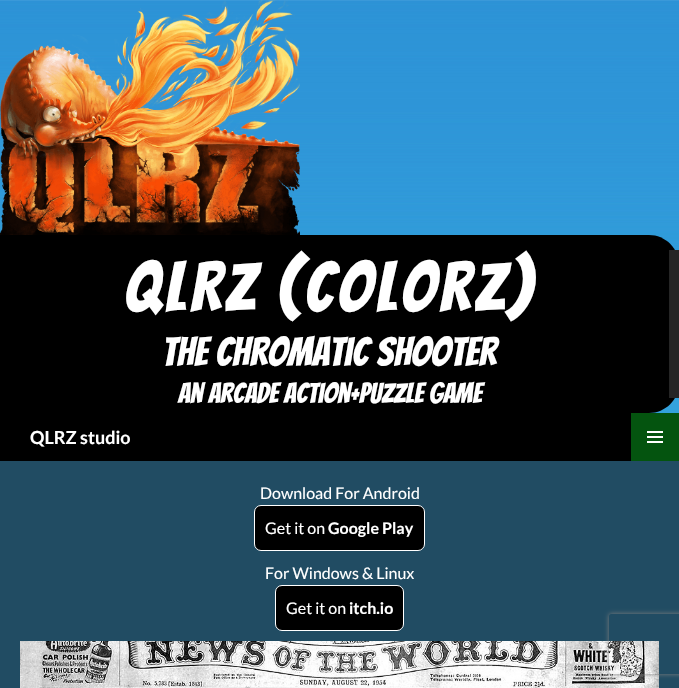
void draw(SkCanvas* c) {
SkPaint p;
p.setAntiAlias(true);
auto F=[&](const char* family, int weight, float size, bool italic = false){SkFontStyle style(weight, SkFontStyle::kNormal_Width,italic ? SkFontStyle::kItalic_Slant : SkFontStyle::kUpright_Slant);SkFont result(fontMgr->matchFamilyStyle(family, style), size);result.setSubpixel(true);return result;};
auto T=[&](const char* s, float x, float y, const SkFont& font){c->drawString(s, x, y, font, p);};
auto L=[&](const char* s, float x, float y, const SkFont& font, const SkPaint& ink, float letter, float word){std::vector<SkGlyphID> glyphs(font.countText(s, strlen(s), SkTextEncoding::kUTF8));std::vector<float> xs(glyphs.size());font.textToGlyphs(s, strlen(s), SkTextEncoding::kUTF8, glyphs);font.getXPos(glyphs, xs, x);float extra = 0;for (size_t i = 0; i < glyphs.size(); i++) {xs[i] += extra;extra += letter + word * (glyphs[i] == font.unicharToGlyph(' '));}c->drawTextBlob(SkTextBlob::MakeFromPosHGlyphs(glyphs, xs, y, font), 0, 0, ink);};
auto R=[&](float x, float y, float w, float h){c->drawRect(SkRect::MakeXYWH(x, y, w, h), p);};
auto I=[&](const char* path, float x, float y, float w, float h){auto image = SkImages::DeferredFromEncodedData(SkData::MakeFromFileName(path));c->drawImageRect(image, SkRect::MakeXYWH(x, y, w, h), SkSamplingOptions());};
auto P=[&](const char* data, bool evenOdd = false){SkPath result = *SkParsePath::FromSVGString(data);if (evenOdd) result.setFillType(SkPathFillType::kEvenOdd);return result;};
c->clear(0xffffffff);
I("1.png",0,0,679,413);
I("2.png",0,0,300,235);
p.setColor(0xff000000);
c->drawPath(P("M-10 235h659c16.5 0 30 13.5 30 30v118c0 16.5-13.5 30-30 30h-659z"),p);
p.setColor(0xff252525);
R(669,250,10,148);
auto f1 = F("Bangers",400,70);
p.setColor(0xffffffff);
L("QLRZ (colorz)",124,312,f1,p,4,0);
auto f2 = F("Bangers",400,40);
T("The chromatic shooter",162,366,f2);
auto f3 = F("Bangers",400,28);
T("an arcade action+puzzle game",178,403,f3);
p.setColor(0xff000000);
R(0,413,631,48);
auto f4 = F("Lato",700,18);
p.setColor(0xffffffff);
T("QLRZ studio",30,444,f4);
p.setColor(0xff04540f);
R(631,413,48,48);
I("3.png",647,431,16,12);
p.setColor(0xff214c63);
R(0,461,679,227);
auto f5 = F("Lato",400,16);
p.setColor(0xffffffff);
T("Download For Android",260,499,f5);
p.setColor(0xff000000);
c->drawRoundRect(SkRect::MakeXYWH(254.5,505.5,170,45),6.5,6.5,p);
p.setStroke(true);
p.setStrokeWidth(1);
p.setColor(0xffffffff);
c->drawRoundRect(SkRect::MakeXYWH(254.5,505.5,170,45),6.5,6.5,p);
p.setStroke(false);
T("Get it on",265,534,f5);
auto f6 = F("Lato",700,16);
T("Google Play",328,534,f6);
T("For Windows & Linux",265,579,f5);
p.setColor(0xff000000);
c->drawRoundRect(SkRect::MakeXYWH(275.5,585.5,128,45),6.5,6.5,p);
p.setStroke(true);
p.setColor(0xffffffff);
c->drawRoundRect(SkRect::MakeXYWH(275.5,585.5,128,45),6.5,6.5,p);
p.setStroke(false);
T("Get it on",286,614,f5);
T("itch.io",349,614,f6);
I("4.png",20,641,639,47);
c->save();
c->clipPath(P("M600 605h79v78h-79zm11 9h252c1 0 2 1 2 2v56c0 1-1 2-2 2h-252c-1 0-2-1-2-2v-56c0-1 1-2 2-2z",true),true);
p.setColor(0xff808080);
p.setMaskFilter(SkMaskFilter::MakeBlur(kNormal_SkBlurStyle, 2.5));
c->drawRoundRect(SkRect::MakeXYWH(609,614,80,60),2,2,p);
p.setMaskFilter(nullptr);
c->restore();
}
